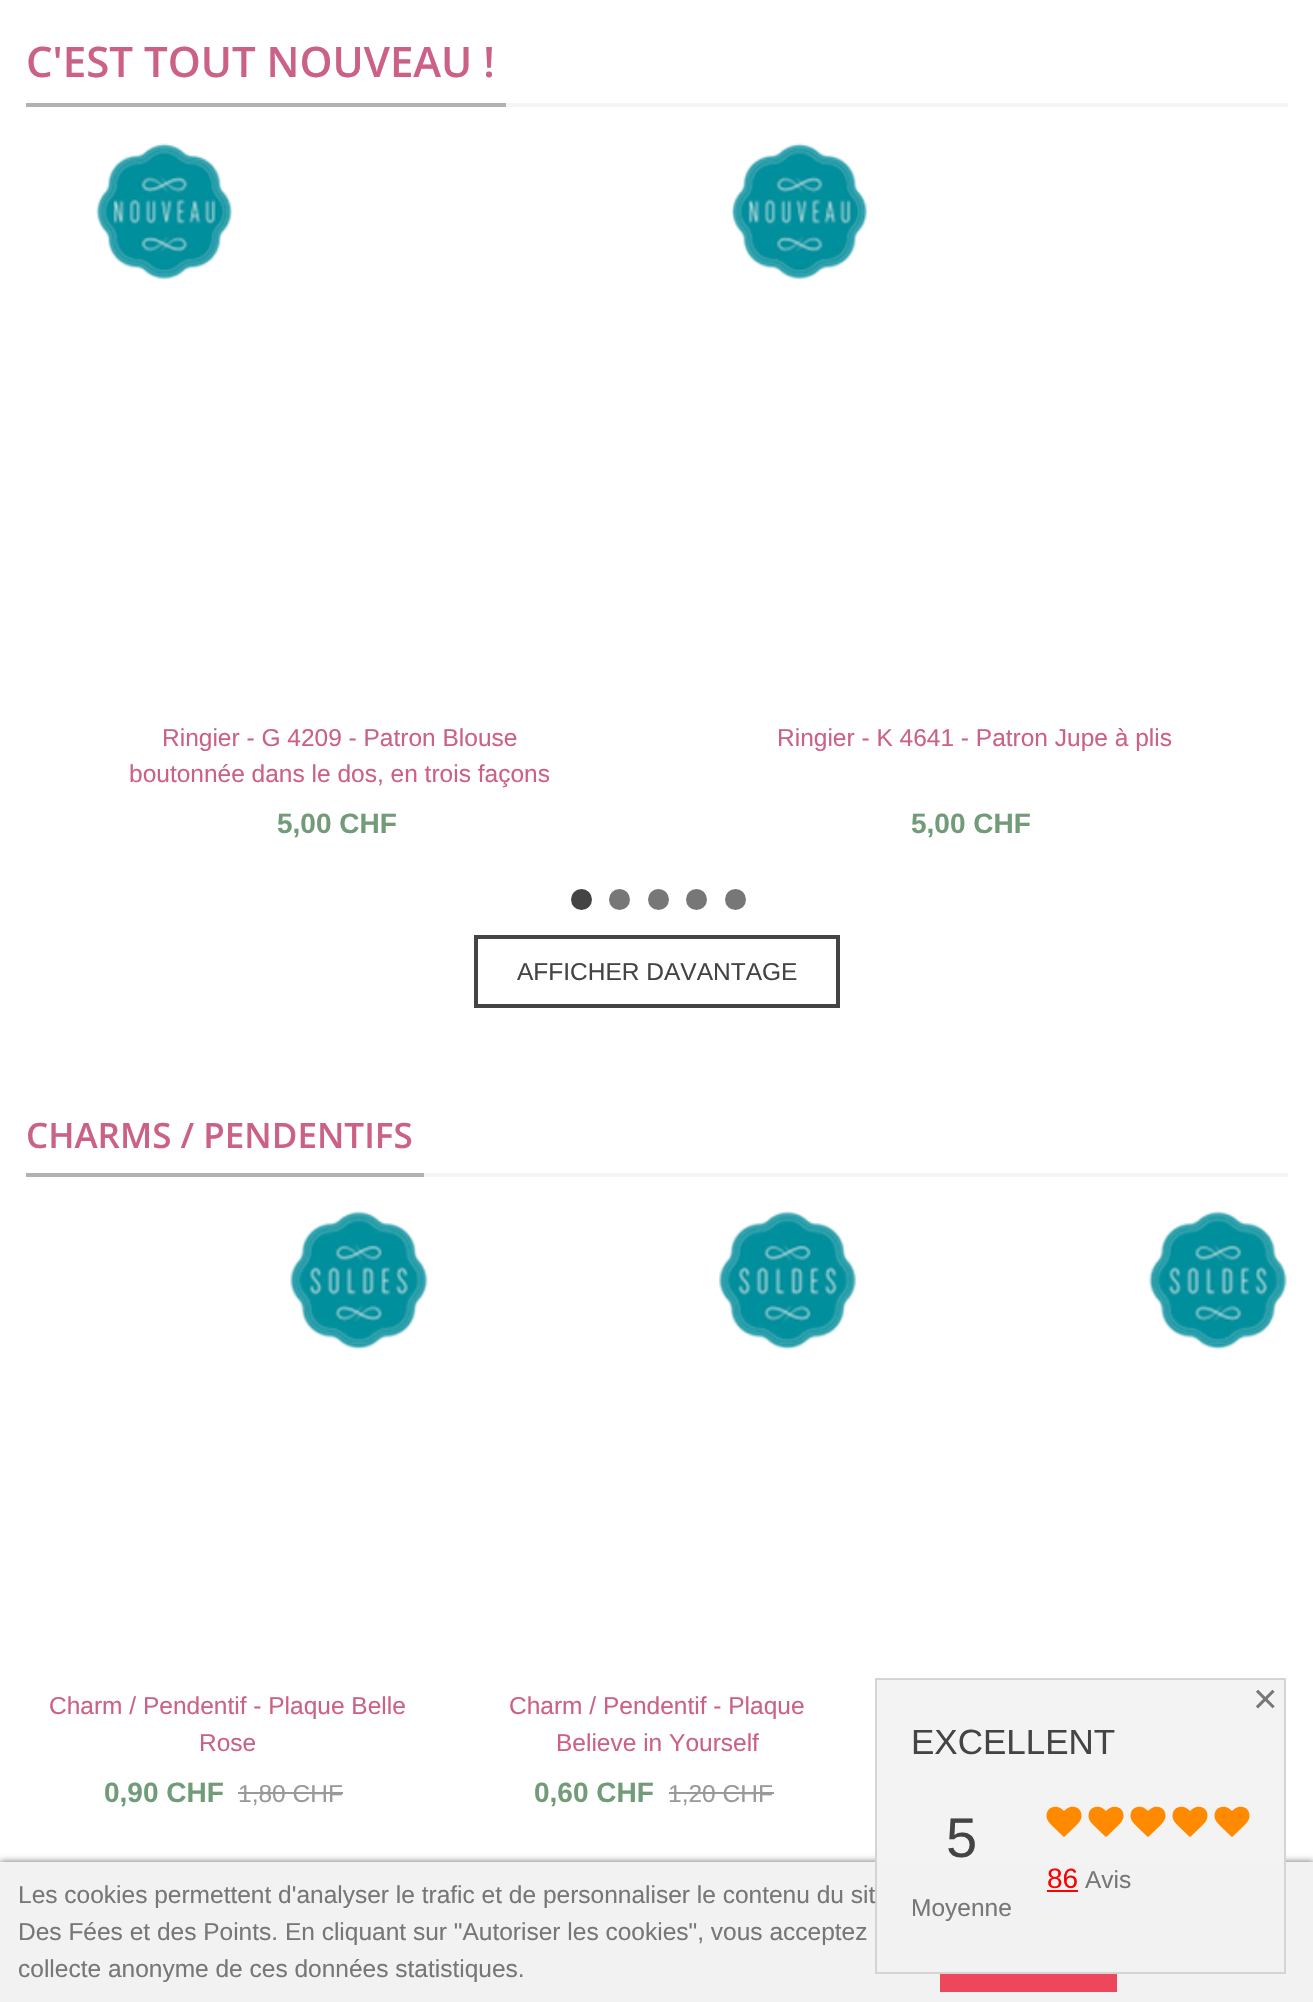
void draw(SkCanvas* c) {
SkPaint p;
p.setAntiAlias(true);
auto F=[&](const char* family, int weight, float size, bool italic = false){SkFontStyle style(weight, SkFontStyle::kNormal_Width,italic ? SkFontStyle::kItalic_Slant : SkFontStyle::kUpright_Slant);SkFont result(fontMgr->matchFamilyStyle(family, style), size);result.setSubpixel(true);return result;};
auto T=[&](const char* s, float x, float y, const SkFont& font){c->drawString(s, x, y, font, p);};
auto R=[&](float x, float y, float w, float h){c->drawRect(SkRect::MakeXYWH(x, y, w, h), p);};
auto I=[&](const char* path, float x, float y, float w, float h){auto image = SkImages::DeferredFromEncodedData(SkData::MakeFromFileName(path));c->drawImageRect(image, SkRect::MakeXYWH(x, y, w, h), SkSamplingOptions());};
c->clear(0xffffffff);
p.setColor(0xfff4f5f6);
R(506,103,782,4);
p.setColor(0xffb2b2b2);
R(26,103,480,4);
auto f1 = F("Open Sans",600,42);
p.setColor(0xffcc6187);
T("C'EST TOUT NOUVEAU !",26,77,f1);
I("1.png",96,143,137,137);
auto f2 = F("Liberation Sans",400,24.5);
T("Ringier - G 4209 - Patron Blouse",162,746,f2);
T("boutonnée dans le dos, en trois façons",129,782,f2);
auto f3 = F("Liberation Sans",700,28);
p.setColor(0xff729b79);
T("5,00 CHF",277,833,f3);
I("2.png",731,143,137,137);
p.setColor(0xffcc6187);
T("Ringier - K 4641 - Patron Jupe à plis",777,746,f2);
p.setColor(0xff729b79);
T("5,00 CHF",911,833,f3);
p.setColor(0xff444444);
c->drawCircle(581.5,899.5,10.5,p);
p.setColor(0xff777777);
c->drawCircle(619.5,899.5,10.5,p);
c->drawCircle(658.5,899.5,10.5,p);
c->drawCircle(696.5,899.5,10.5,p);
c->drawCircle(735.5,899.5,10.5,p);
p.setStroke(true);
p.setStrokeWidth(4);
p.setColor(0xff444444);
c->drawRect(SkRect::MakeXYWH(476,937,362,69),p);
p.setStroke(false);
T("AFFICHER DAVANTAGE",517,980,f2);
p.setColor(0xfff4f5f6);
R(424,1173,864,4);
p.setColor(0xffb2b2b2);
R(26,1173,398,4);
auto f4 = F("Open Sans",600,35);
p.setColor(0xffcc6187);
T("CHARMS / PENDENTIFS",26,1148,f4);
I("3.png",1149,1211,138,139);
I("4.png",290,1211,138,139);
T("Charm / Pendentif - Plaque Belle",49,1714,f2);
T("Rose",199,1751,f2);
p.setColor(0xff729b79);
T("0,90 CHF",104,1802,f3);
p.setColor(0xff999999);
T("1,80 CHF",238,1802,f2);
R(238,1792,105,2);
I("5.png",718,1211,139,139);
p.setColor(0xffcc6187);
T("Charm / Pendentif - Plaque",509,1714,f2);
T("Believe in Yourself",556,1751,f2);
p.setColor(0xff729b79);
T("0,60 CHF",534,1802,f3);
p.setColor(0xff999999);
T("1,20 CHF",668,1802,f2);
R(669,1792,105,2);
p.setColor(0x99000000);
p.setMaskFilter(SkMaskFilter::MakeBlur(kNormal_SkBlurStyle, 3.5));
c->drawRect(SkRect::MakeXYWH(0,1862,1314,140),p);
p.setMaskFilter(nullptr);
p.setColor(0xfff3f3f3);
R(877,1680,407,182);
p.setColor(0xfff2f2f2);
R(0,1862,1313,140);
p.setStroke(true);
p.setStrokeWidth(2);
p.setColor(0xffd4d4d4);
c->drawRect(SkRect::MakeXYWH(876,1679,409,294),p);
auto f5 = F("Liberation Sans",400,42);
p.setStroke(false);
p.setColor(0xff777777);
T("×",1253,1713,f5);
auto f6 = F("Liberation Sans",400,35);
p.setColor(0xff444444);
T("EXCELLENT",911,1754,f6);
auto f7 = F("Liberation Sans",400,56);
T("5",946,1857,f7);
p.setColor(0xff777777);
T("Moyenne",911,1916,f2);
I("6.png",1046,1806,36,31);
I("6.png",1088,1806,36,31);
I("6.png",1130,1806,36,31);
I("6.png",1172,1806,36,31);
I("6.png",1214,1806,36,31);
auto f8 = F("Liberation Sans",400,28);
p.setColor(0xfffe0000);
T("86",1047,1888,f8);
R(1047,1890,31,2);
p.setColor(0xff777777);
T("Avis",1085,1888,f2);
T("Les cookies permettent d'analyser le trafic et de personnaliser le contenu du sit",18,1903,f2);
T("Des Fées et des Points. En cliquant sur \"Autoriser les cookies\", vous acceptez",18,1940,f2);
T("collecte anonyme de ces données statistiques.",18,1977,f2);
p.setColor(0xffed475b);
R(940,1974,177,18);
}
